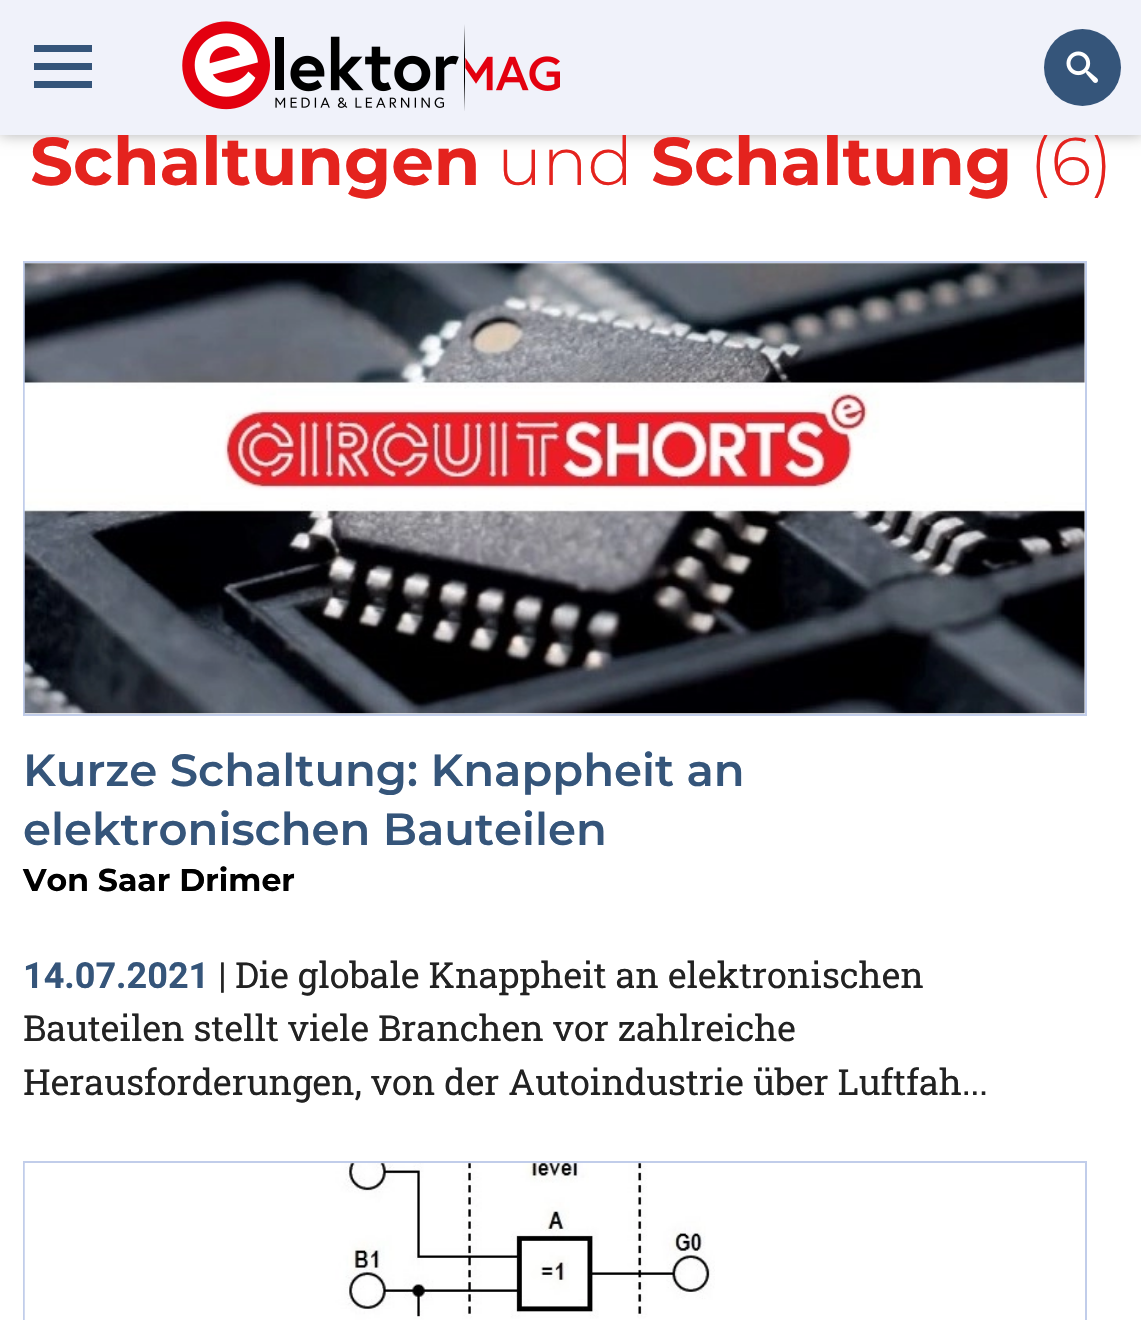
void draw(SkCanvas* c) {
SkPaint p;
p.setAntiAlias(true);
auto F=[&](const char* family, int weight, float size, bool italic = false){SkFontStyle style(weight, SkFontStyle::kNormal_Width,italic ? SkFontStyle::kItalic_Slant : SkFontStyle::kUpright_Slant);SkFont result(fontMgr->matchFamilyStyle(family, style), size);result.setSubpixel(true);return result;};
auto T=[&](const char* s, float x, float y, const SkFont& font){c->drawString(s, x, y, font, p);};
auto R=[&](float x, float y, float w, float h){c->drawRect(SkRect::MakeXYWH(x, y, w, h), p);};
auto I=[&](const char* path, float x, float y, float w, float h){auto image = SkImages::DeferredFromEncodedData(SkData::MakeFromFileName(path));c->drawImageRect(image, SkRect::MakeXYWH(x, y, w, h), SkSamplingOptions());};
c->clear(0xffffffff);
p.setColor(0x4d000000);
p.setMaskFilter(SkMaskFilter::MakeBlur(kNormal_SkBlurStyle, 7));
c->drawRect(SkRect::MakeXYWH(0,0,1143,135),p);
p.setMaskFilter(nullptr);
auto f1 = F("Montserrat",700,67.5);
p.setColor(0xffe4231e);
T("Schaltungen",30,185,f1);
auto f2 = F("Montserrat",300,67.5);
T("und",497,185,f2);
T("Schaltung",651,185,f1);
T("(6)",1029,185,f2);
p.setColor(0xfff0f2fa);
R(0,0,1141,135);
p.setColor(0xff35557a);
R(34,45,58,7);
R(34,63,58,7);
R(34,81,58,7);
I("1.png",182,21,378,90);
c->drawCircle(1082.5,67.5,38.5,p);
I("2.png",1066,51,32,32);
p.setStroke(true);
p.setStrokeWidth(2);
p.setColor(0xffc1cdea);
c->drawRect(SkRect::MakeXYWH(24,262,1062,453),p);
I("3.png",24,263,1061,451);
auto f3 = F("Montserrat",600,45);
p.setStroke(false);
p.setColor(0xff35557a);
T("Kurze Schaltung: Knappheit an",23,786,f3);
T("elektronischen Bauteilen",23,845,f3);
auto f4 = F("Montserrat",700,31.5);
p.setColor(0xff000000);
T("Von Saar Drimer",23,891,f4);
auto f5 = F("Roboto",700,36);
p.setColor(0xff35557a);
T("14.07.2021",23,988,f5);
auto f6 = F("Roboto",400,36);
p.setColor(0xff222222);
T("|",218,988,f6);
auto f7 = F("Roboto Slab",400,36);
T("Die globale Knappheit an elektronischen",235,988,f7);
T("Bauteilen stellt viele Branchen vor zahlreiche",23,1041,f7);
T("Herausforderungen, von der Autoindustrie über Luftfah...",23,1095,f7);
p.setStroke(true);
p.setColor(0xffc1cdea);
c->drawRect(SkRect::MakeXYWH(24,1162,1062,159),p);
I("4.png",24,1163,691,157);
}
